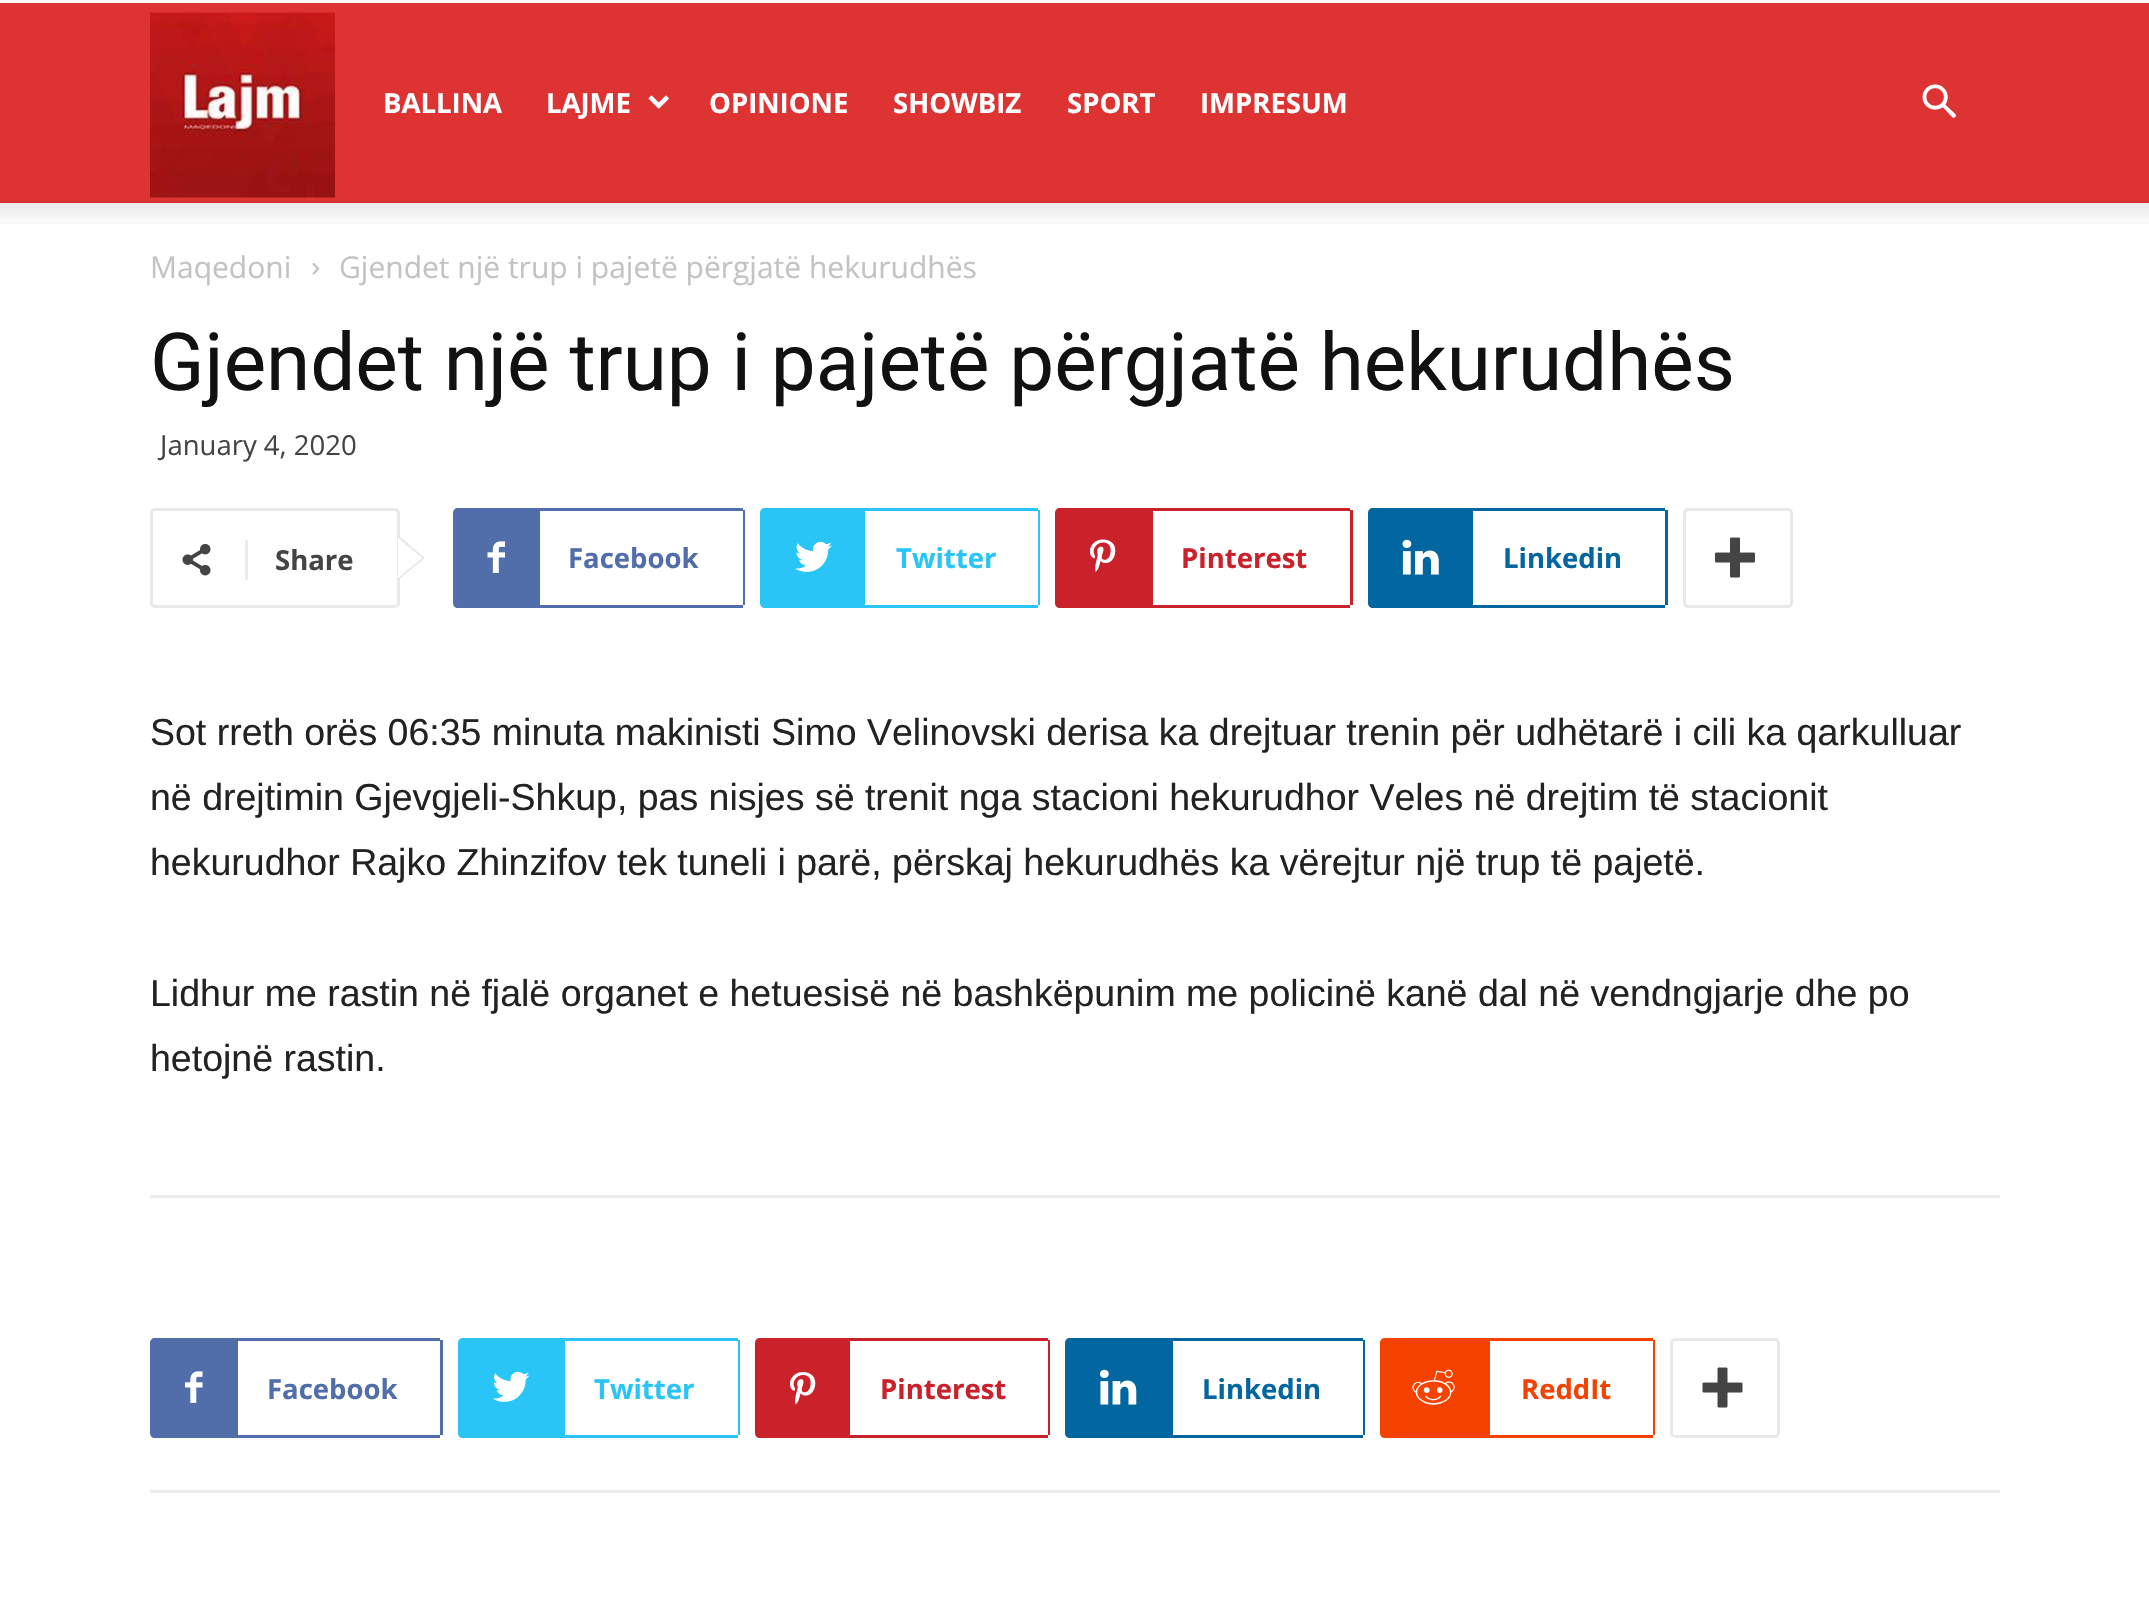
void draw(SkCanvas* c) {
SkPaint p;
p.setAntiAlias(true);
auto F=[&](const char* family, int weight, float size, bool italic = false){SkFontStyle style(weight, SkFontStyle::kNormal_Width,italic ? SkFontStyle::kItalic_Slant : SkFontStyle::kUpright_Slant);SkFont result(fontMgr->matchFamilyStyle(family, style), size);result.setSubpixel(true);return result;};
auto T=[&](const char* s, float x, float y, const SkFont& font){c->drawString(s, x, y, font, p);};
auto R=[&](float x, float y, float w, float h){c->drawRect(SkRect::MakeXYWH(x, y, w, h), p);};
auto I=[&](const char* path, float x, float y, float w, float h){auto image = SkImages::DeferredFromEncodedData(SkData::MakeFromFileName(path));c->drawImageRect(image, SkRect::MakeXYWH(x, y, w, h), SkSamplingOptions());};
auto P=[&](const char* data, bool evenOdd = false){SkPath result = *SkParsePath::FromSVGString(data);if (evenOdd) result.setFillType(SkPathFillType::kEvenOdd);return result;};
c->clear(0xffffffff);
p.setColor(0xffdd3333);
R(0,3,2149,200);
I("1.png",150,12,185,186);
auto f1 = F("Open Sans",700,27.5);
p.setColor(0xffffffff);
T("BALLINA",383,113,f1);
T("LAJME",546,113,f1);
I("2.png",648,95,21,14);
T("OPINIONE",709,113,f1);
T("SHOWBIZ",893,113,f1);
T("SPORT",1067,113,f1);
T("IMPRESUM",1200,113,f1);
I("3.png",1922,84,34,34);
I("4.png",0,202,2149,22);
auto f2 = F("Open Sans",400,30);
p.setColor(0xffc3c3c3);
T("Maqedoni",150,278,f2);
I("5.png",312,263,8,12);
T("Gjendet një trup i pajetë përgjatë hekurudhës",339,278,f2);
auto f3 = F("Roboto",400,80);
p.setColor(0xff111111);
T("Gjendet një trup i pajetë përgjatë hekurudhës",150,390,f3);
auto f4 = F("Open Sans",400,27.5);
p.setColor(0xff444444);
T("January 4, 2020",160,455,f4);
p.setStroke(true);
p.setStrokeWidth(3);
p.setColor(0xffe9e9e9);
c->drawRoundRect(SkRect::MakeXYWH(151.5,509.5,247,97),3.5,3.5,p);
p.setStroke(false);
c->drawPath(P("M398 580v-45l27 23z"),p);
I("6.png",182,543,29,33);
p.setColor(0xffebebeb);
R(245,540,3,40);
p.setColor(0xff444444);
T("Share",275,570,f1);
p.setColor(0xffffffff);
c->drawPath(P("M398 578v-40l24 20z"),p);
p.setColor(0xff516eab);
R(538,508,205,3);
R(538,605,205,3);
c->drawPath(P("M458 508h82v100h-82c-3 0-5-2-5-5v-90c0-3 2-5 5-5z"),p);
I("7.png",487,541,18,32);
R(743,510,2,95);
T("Facebook",568,568,f1);
p.setColor(0xff29c5f6);
c->drawPath(P("M765 508h100v100h-100c-3 0-5-2-5-5v-90c0-3 2-5 5-5z"),p);
I("8.png",795,541,37,31);
R(865,508,173,3);
R(1038,510,2,95);
R(865,605,173,3);
T("Twitter",896,568,f1);
p.setColor(0xffca212a);
R(1150,508,200,3);
R(1150,605,200,3);
c->drawPath(P("M1060 508h93v100h-93c-3 0-5-2-5-5v-90c0-3 2-5 5-5z"),p);
I("9.png",1090,539,26,33);
R(1350,510,3,95);
T("Pinterest",1181,568,f1);
p.setColor(0xff0266a0);
c->drawPath(P("M1373 508h100v100h-100c-3 0-5-2-5-5v-90c0-3 2-5 5-5z"),p);
I("10.png",1402,539,37,36);
R(1473,508,192,3);
R(1665,510,3,95);
R(1473,605,192,3);
T("Linkedin",1503,568,f1);
p.setStroke(true);
p.setColor(0xffe9e9e9);
c->drawRoundRect(SkRect::MakeXYWH(1684.5,509.5,107,97),3.5,3.5,p);
I("11.png",1715,537,40,41);
auto f5 = F("Liberation Sans",400,37.5);
p.setStroke(false);
p.setColor(0xff222222);
T("Sot rreth orës 06:35 minuta makinisti Simo Velinovski derisa ka drejtuar trenin për udhëtarë i cili ka qarkulluar",150,745,f5);
T("në drejtimin Gjevgjeli-Shkup, pas nisjes së trenit nga stacioni hekurudhor Veles në drejtim të stacionit",150,810,f5);
T("hekurudhor Rajko Zhinzifov tek tuneli i parë, përskaj hekurudhës ka vërejtur një trup të pajetë.",150,875,f5);
T("Lidhur me rastin në fjalë organet e hetuesisë në bashkëpunim me policinë kanë dal në vendngjarje dhe po",150,1006,f5);
T("hetojnë rastin.",150,1071,f5);
p.setColor(0xffededed);
R(150,1195,1850,3);
R(150,1490,1850,3);
p.setColor(0xff516eab);
c->drawPath(P("M155 1338h83v100h-83c-3 0-5-2-5-5v-90c0-3 2-5 5-5z"),p);
I("12.png",185,1371,18,32);
R(238,1338,202,3);
R(440,1340,3,95);
R(238,1435,202,3);
T("Facebook",267,1399,f1);
p.setColor(0xff29c5f6);
c->drawPath(P("M463 1338h102v100h-102c-3 0-5-2-5-5v-90c0-3 2-5 5-5z"),p);
I("13.png",492,1371,38,31);
R(565,1338,173,3);
R(738,1340,2,95);
R(565,1435,173,3);
T("Twitter",594,1399,f1);
p.setColor(0xffca212a);
c->drawPath(P("M760 1338h90v100h-90c-3 0-5-2-5-5v-90c0-3 2-5 5-5z"),p);
I("14.png",790,1372,26,33);
R(850,1338,198,3);
R(1048,1340,2,95);
R(850,1435,198,3);
T("Pinterest",880,1399,f1);
p.setColor(0xff0266a0);
c->drawPath(P("M1070 1338h103v100h-103c-3 0-5-2-5-5v-90c0-3 2-5 5-5z"),p);
I("15.png",1100,1369,37,36);
R(1173,1338,190,3);
R(1363,1340,2,95);
R(1173,1435,190,3);
T("Linkedin",1202,1399,f1);
p.setColor(0xfff54200);
c->drawPath(P("M1385 1338h105v100h-105c-3 0-5-2-5-5v-90c0-3 2-5 5-5z"),p);
I("16.png",1412,1369,43,36);
R(1490,1338,163,3);
R(1653,1340,2,95);
R(1490,1435,163,3);
T("ReddIt",1521,1399,f1);
p.setStroke(true);
p.setColor(0xffe9e9e9);
c->drawRoundRect(SkRect::MakeXYWH(1671.5,1339.5,107,97),3.5,3.5,p);
I("17.png",1702,1367,41,41);
}
